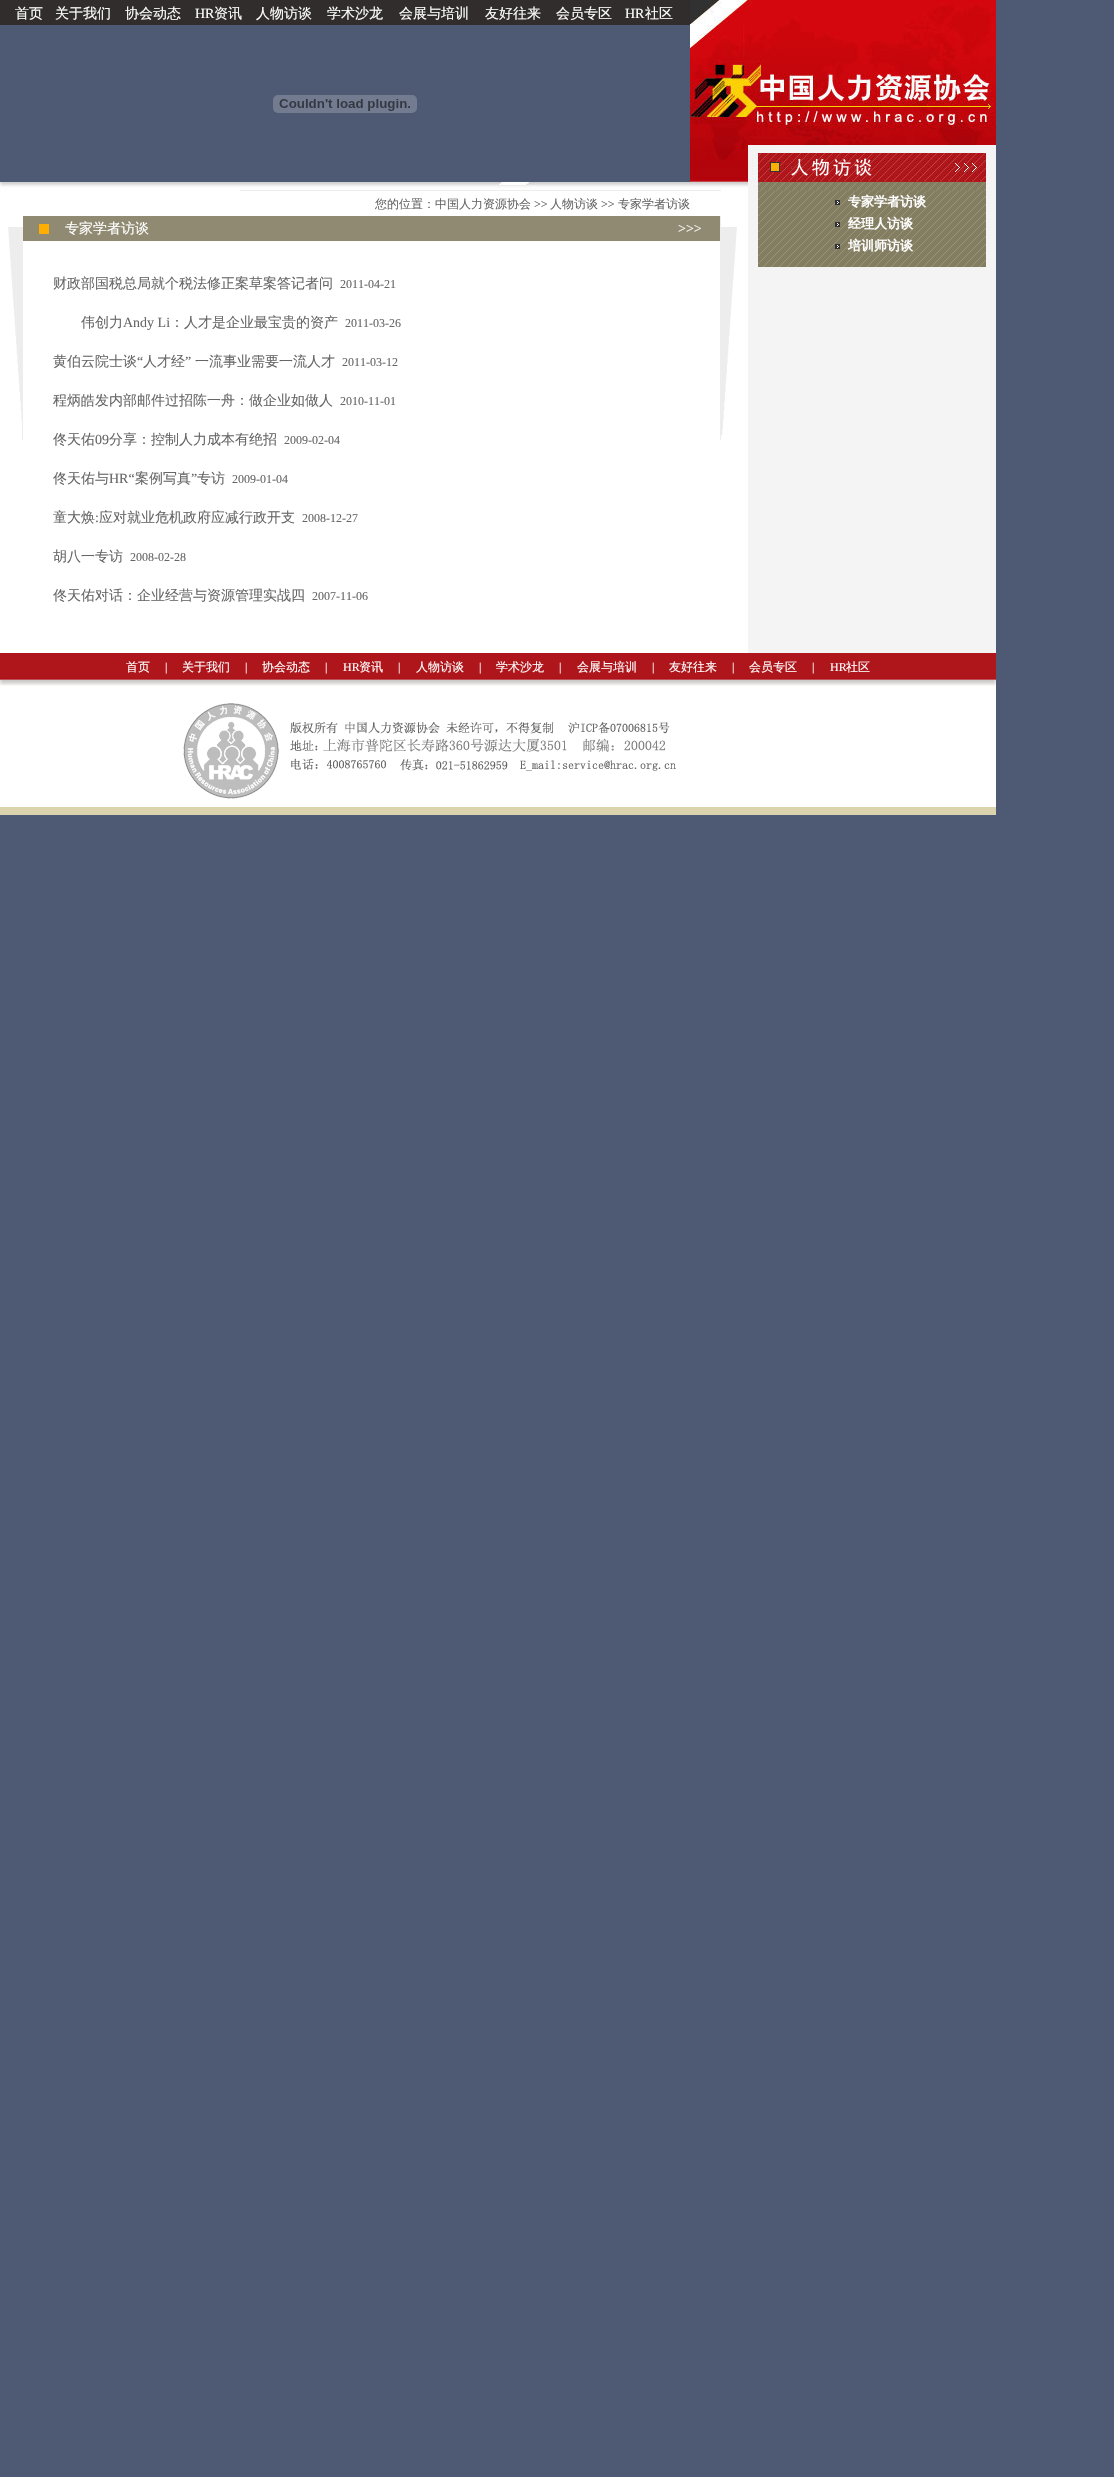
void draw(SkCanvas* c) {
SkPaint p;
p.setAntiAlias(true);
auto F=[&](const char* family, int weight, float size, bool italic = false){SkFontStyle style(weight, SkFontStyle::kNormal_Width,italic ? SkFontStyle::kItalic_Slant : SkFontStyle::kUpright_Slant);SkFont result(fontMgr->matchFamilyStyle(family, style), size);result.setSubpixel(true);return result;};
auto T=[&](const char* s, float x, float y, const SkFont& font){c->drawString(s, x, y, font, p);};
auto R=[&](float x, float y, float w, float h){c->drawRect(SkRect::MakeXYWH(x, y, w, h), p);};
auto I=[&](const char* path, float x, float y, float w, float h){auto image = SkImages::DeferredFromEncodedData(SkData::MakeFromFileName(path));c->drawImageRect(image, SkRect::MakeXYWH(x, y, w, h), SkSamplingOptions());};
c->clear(0xff4e5a74);
p.setColor(0xff312d2c);
R(0,0,690,25);
auto f1 = F("WenQuanYi Zen Hei",500,14);
p.setColor(0xffffffff);
T("首页",15,18,f1);
T("关于我们",55,18,f1);
T("协会动态",125,18,f1);
auto f2 = F("Liberation Serif",400,14);
T("HR",195,18,f2);
T("资讯",214,18,f1);
T("人物访谈",256,18,f1);
T("学术沙龙",327,18,f1);
T("会展与培训",399,18,f1);
T("友好往来",485,18,f1);
T("会员专区",556,18,f1);
T("HR",625,18,f2);
T("社区",645,18,f1);
I("1.png",690,0,306,25);
I("2.png",273,95,144,18);
I("3.png",690,25,306,120);
I("4.png",690,145,64,37);
I("5.png",754,145,242,37);
I("6.png",0,182,996,9);
R(0,191,748,462);
I("7.png",8,227,15,18);
I("8.png",9,245,14,195);
auto f3 = F("WenQuanYi Zen Hei",500,12);
p.setColor(0xff666666);
T("您的位置：中国人力资源协会",375,208,f3);
auto f4 = F("Liberation Serif",400,12);
T(">>",534,208,f4);
T("人物访谈",550,208,f3);
T(">>",601,208,f4);
T("专家学者访谈",618,208,f3);
p.setColor(0xff908a72);
R(23,216,697,25);
p.setColor(0xfffeae02);
R(39,224,10,10);
p.setColor(0xffffffff);
T("专家学者访谈",65,233,f1);
T(">>>",678,233,f2);
p.setColor(0xff666666);
T("财政部国税总局就个税法修正案草案答记者问",53,288,f1);
T("2011-04-21",340,288,f4);
T("伟创力",81,327,f1);
T("Andy Li",123,327,f2);
T("：人才是企业最宝贵的资产",170,327,f1);
T("2011-03-26",345,327,f4);
T("黄伯云院士谈",53,366,f1);
T("“",137,366,f2);
T("人才经",143,366,f1);
T("”",185,366,f2);
T("一流事业需要一流人才",195,366,f1);
T("2011-03-12",342,366,f4);
T("程炳皓发内部邮件过招陈一舟：做企业如做人",53,405,f1);
T("2010-11-01",340,405,f4);
T("佟天佑",53,444,f1);
T("09",95,444,f2);
T("分享：控制人力成本有绝招",109,444,f1);
T("2009-02-04",284,444,f4);
T("佟天佑与",53,483,f1);
T("HR“",109,483,f2);
T("案例写真",135,483,f1);
T("”",191,483,f2);
T("专访",197,483,f1);
T("2009-01-04",232,483,f4);
T("童大焕",53,522,f1);
T(":",95,522,f2);
T("应对就业危机政府应减行政开支",99,522,f1);
T("2008-12-27",302,522,f4);
T("胡八一专访",53,561,f1);
T("2008-02-28",130,561,f4);
T("佟天佑对话：企业经营与资源管理实战四",53,600,f1);
T("2007-11-06",312,600,f4);
I("9.png",720,216,17,224);
p.setColor(0xfff4f4f4);
R(748,191,248,462);
I("10.png",758,191,228,76);
I("11.png",835,200,5,5);
auto f5 = F("WenQuanYi Zen Hei",700,13);
p.setColor(0xffffffff);
T("专家学者访谈",848,206,f5);
I("11.png",835,222,5,5);
T("经理人访谈",848,228,f5);
I("11.png",835,244,5,5);
T("培训师访谈",848,250,f5);
R(0,686,996,17);
p.setColor(0xffaf161b);
R(0,653,996,25);
p.setColor(0xffffffff);
T("首页",126,671,f3);
T("|",165,671,f4);
T("关于我们",182,671,f3);
T("|",245,671,f4);
T("协会动态",262,671,f3);
T("|",325,671,f4);
T("HR",343,671,f4);
T("资讯",359,671,f3);
T("|",398,671,f4);
T("人物访谈",416,671,f3);
T("|",479,671,f4);
T("学术沙龙",496,671,f3);
T("|",559,671,f4);
T("会展与培训",577,671,f3);
T("|",652,671,f4);
T("友好往来",669,671,f3);
T("|",732,671,f4);
T("会员专区",749,671,f3);
T("|",812,671,f4);
T("HR",830,671,f4);
T("社区",846,671,f3);
I("12.png",0,678,996,8);
I("13.png",0,703,996,112);
}
